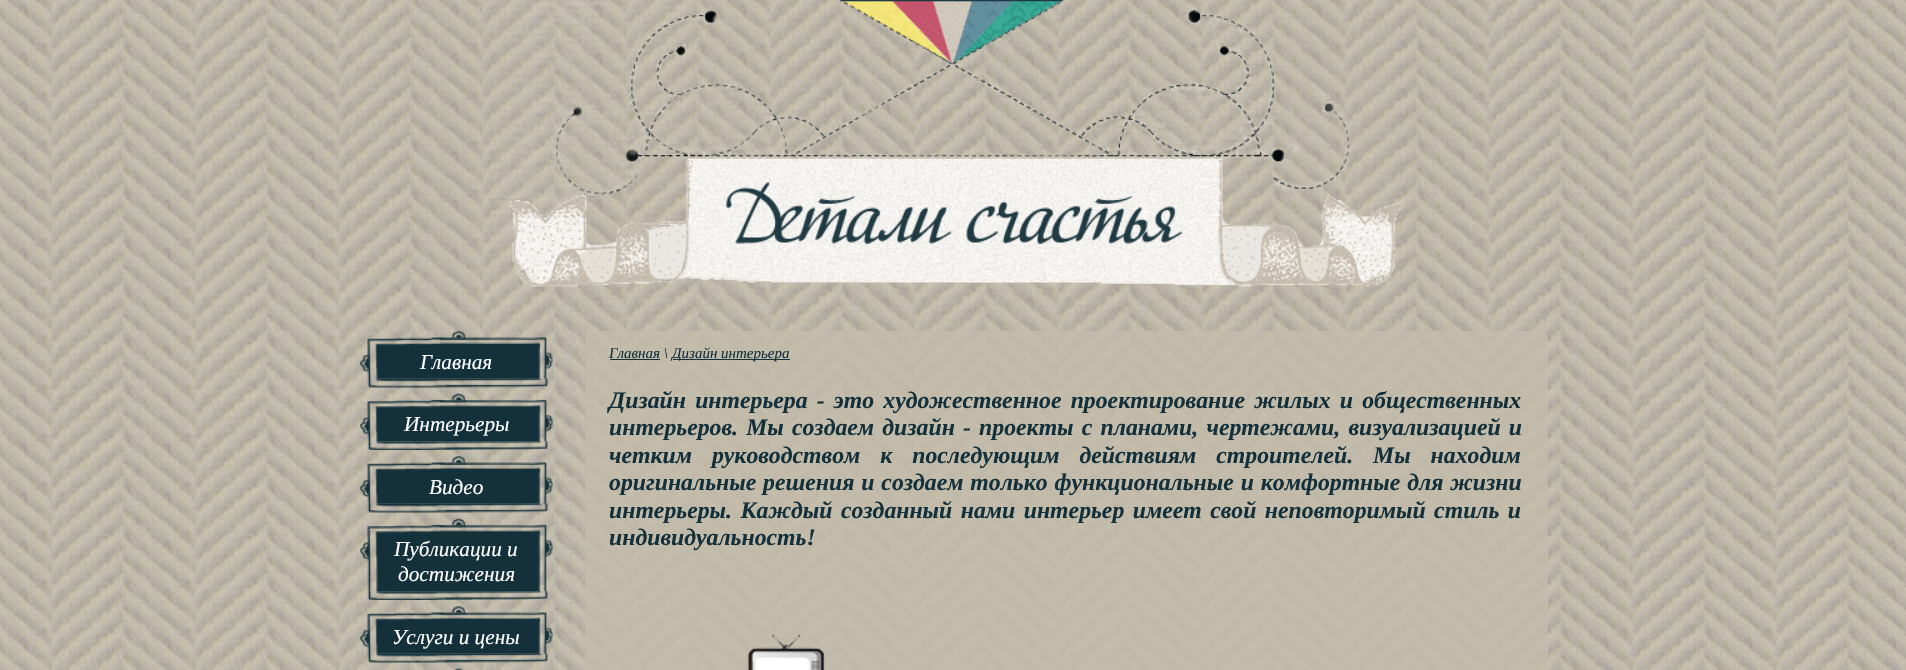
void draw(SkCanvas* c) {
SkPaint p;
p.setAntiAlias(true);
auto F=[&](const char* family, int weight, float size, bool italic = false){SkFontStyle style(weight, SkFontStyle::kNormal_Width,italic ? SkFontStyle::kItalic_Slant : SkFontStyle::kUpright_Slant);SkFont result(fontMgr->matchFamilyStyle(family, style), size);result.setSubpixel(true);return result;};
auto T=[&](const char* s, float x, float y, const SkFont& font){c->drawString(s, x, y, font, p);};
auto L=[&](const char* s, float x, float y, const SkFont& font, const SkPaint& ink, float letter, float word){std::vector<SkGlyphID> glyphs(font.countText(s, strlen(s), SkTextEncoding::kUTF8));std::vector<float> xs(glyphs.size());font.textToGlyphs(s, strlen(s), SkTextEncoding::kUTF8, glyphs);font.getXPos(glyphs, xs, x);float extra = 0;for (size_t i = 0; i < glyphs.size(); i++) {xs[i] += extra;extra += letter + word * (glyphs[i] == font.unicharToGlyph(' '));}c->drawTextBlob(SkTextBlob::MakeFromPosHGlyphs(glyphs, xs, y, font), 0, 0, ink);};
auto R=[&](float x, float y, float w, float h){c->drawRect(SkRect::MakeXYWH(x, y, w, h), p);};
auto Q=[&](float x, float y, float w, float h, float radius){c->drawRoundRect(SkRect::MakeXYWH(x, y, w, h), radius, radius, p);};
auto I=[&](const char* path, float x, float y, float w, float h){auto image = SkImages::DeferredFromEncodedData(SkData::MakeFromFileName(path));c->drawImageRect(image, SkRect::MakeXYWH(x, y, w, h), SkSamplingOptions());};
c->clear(0xffffffff);
I("1.png",0,0,1906,670);
I("2.png",413,0,1004,303);
I("3.png",726,182,457,62);
I("4.png",367,378,181,10);
I("5.png",360,331,193,48);
auto f1 = F("Liberation Serif",400,21.25,true);
p.setColor(0xffffffff);
T("Главная",420,369,f1);
I("6.png",367,441,181,9);
I("7.png",360,393,193,49);
T("Интерьеры",404,431,f1);
I("8.png",367,503,181,10);
I("9.png",360,456,193,48);
T("Видео",429,494,f1);
I("10.png",367,591,181,9);
I("11.png",360,518,193,74);
T("Публикации и",394,556,f1);
T("достижения",398,581,f1);
I("12.png",367,653,181,10);
I("13.png",360,606,193,48);
T("Услуги и цены",392,644,f1);
I("14.png",454,668,10,2);
p.setColor(0xccc3bcaa);
Q(585,331,963,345,6);
auto f2 = F("Liberation Serif",400,15,true);
p.setColor(0xff14303a);
T("Главная \\",609,358,f2);
R(610,359,50,1);
R(673,359,117,1);
T("Дизайн интерьера",672,358,f2);
auto f3 = F("Liberation Serif",700,23.75,true);
L("Дизайн интерьера - это художественное проектирование жилых и общественных",609,408,f3,p,0,3.25);
L("интерьеров. Мы создаем дизайн - проекты с планами, чертежами, визуализацией и",609,435,f3,p,0,2.25);
L("четким руководством к последующим действиям строителей. Мы находим",609,463,f3,p,0,14);
L("оригинальные решения и создаем только функциональные и комфортные для жизни",609,490,f3,p,0,.9);
L("интерьеры. Каждый созданный нами интерьер имеет свой неповторимый стиль и",609,518,f3,p,0,2.5);
T("индивидуальность!",609,545,f3);
I("15.png",747,634,78,36);
}
